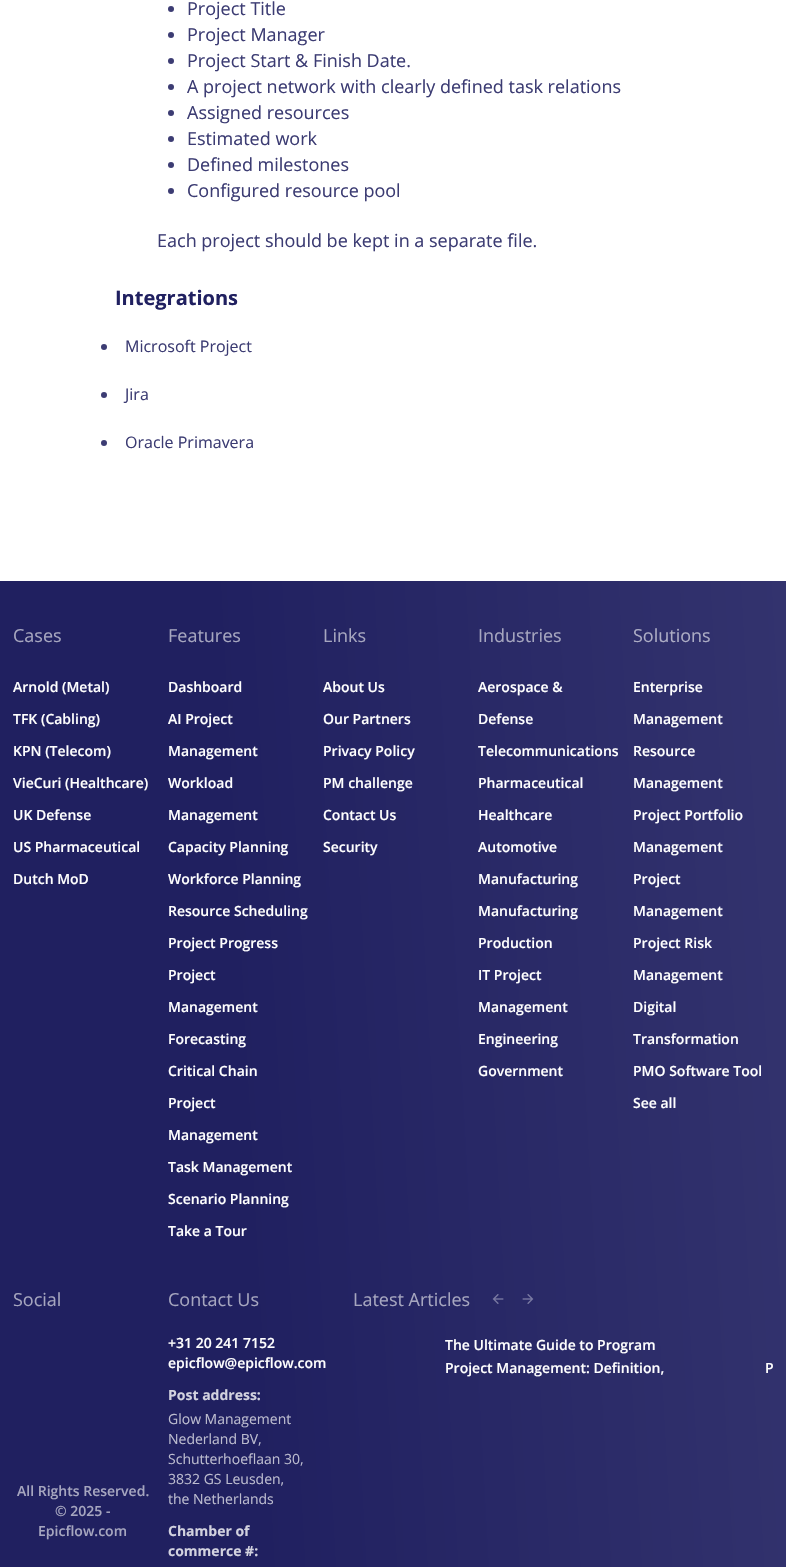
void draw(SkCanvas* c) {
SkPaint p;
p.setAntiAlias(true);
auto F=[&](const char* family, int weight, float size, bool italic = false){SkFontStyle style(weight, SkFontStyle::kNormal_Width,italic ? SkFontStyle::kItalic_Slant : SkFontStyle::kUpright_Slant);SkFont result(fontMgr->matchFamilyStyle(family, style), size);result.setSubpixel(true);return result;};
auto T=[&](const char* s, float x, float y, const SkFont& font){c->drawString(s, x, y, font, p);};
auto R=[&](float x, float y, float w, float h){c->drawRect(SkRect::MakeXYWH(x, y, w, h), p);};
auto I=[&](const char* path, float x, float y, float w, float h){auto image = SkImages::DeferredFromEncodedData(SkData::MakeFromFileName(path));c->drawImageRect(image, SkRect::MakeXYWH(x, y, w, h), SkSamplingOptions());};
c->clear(0xffffffff);
p.setColor(0xff3c3c73);
c->drawCircle(171,9,3,p);
auto f1 = F("Open Sans",400,18);
T("Project Title",187,15,f1);
c->drawCircle(171,35,3,p);
T("Project Manager",187,41,f1);
c->drawCircle(171,61,3,p);
T("Project Start & Finish Date.",187,67,f1);
c->drawCircle(171,87,3,p);
T("A project network with clearly defined task relations",187,93,f1);
c->drawCircle(171,113,3,p);
T("Assigned resources",187,119,f1);
c->drawCircle(171,139,3,p);
T("Estimated work",187,145,f1);
c->drawCircle(171,165,3,p);
T("Defined milestones",187,171,f1);
c->drawCircle(171,191,3,p);
T("Configured resource pool",187,197,f1);
T("Each project should be kept in a separate file.",157,247,f1);
auto f2 = F("Open Sans",700,20);
p.setColor(0xff202060);
T("Integrations",115,305,f2);
p.setColor(0xff3c3c73);
c->drawCircle(104,347,3,p);
auto f3 = F("Open Sans",400,16);
T("Microsoft Project",125,352,f3);
c->drawCircle(104,395,3,p);
T("Jira",125,400,f3);
c->drawCircle(104,443,3,p);
T("Oracle Primavera",125,448,f3);
{
const SkColor colors[] = {0xff202060,0xff202060,0xff33336e};
const float stops[] = {0,.34,1};
const SkPoint ends[] = {{-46,1454}, {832,1406}};
p.setShader(SkGradientShader::MakeLinear(ends, colors, stops, 3, SkTileMode::kClamp));
p.setAlpha(255);
}
R(0,581,786,986);
p.setShader(nullptr);
p.setColor(0xffa6a6bf);
T("Cases",13,642,f1);
auto f4 = F("Open Sans",600,14);
p.setColor(0xffffffff);
T("Arnold (Metal)",13,692,f4);
T("TFK (Cabling)",13,724,f4);
T("KPN (Telecom)",13,756,f4);
T("VieCuri (Healthcare)",13,788,f4);
T("UK Defense",13,820,f4);
T("US Pharmaceutical",13,852,f4);
T("Dutch MoD",13,884,f4);
p.setColor(0xffa6a6bf);
T("Features",168,642,f1);
p.setColor(0xffffffff);
T("Dashboard",168,692,f4);
T("AI Project",168,724,f4);
T("Management",168,756,f4);
T("Workload",168,788,f4);
T("Management",168,820,f4);
T("Capacity Planning",168,852,f4);
T("Workforce Planning",168,884,f4);
T("Resource Scheduling",168,916,f4);
T("Project Progress",168,948,f4);
T("Project",168,980,f4);
T("Management",168,1012,f4);
T("Forecasting",168,1044,f4);
T("Critical Chain",168,1076,f4);
T("Project",168,1108,f4);
T("Management",168,1140,f4);
T("Task Management",168,1172,f4);
T("Scenario Planning",168,1204,f4);
T("Take a Tour",168,1236,f4);
p.setColor(0xffa6a6bf);
T("Links",323,642,f1);
p.setColor(0xffffffff);
T("About Us",323,692,f4);
T("Our Partners",323,724,f4);
T("Privacy Policy",323,756,f4);
T("PM challenge",323,788,f4);
T("Contact Us",323,820,f4);
T("Security",323,852,f4);
p.setColor(0xffa6a6bf);
T("Industries",478,642,f1);
p.setColor(0xffffffff);
T("Aerospace &",478,692,f4);
T("Defense",478,724,f4);
T("Telecommunications",478,756,f4);
T("Pharmaceutical",478,788,f4);
T("Healthcare",478,820,f4);
T("Automotive",478,852,f4);
T("Manufacturing",478,884,f4);
T("Manufacturing",478,916,f4);
T("Production",478,948,f4);
T("IT Project",478,980,f4);
T("Management",478,1012,f4);
T("Engineering",478,1044,f4);
T("Government",478,1076,f4);
p.setColor(0xffacacc4);
T("Solutions",633,642,f1);
p.setColor(0xffffffff);
T("Enterprise",633,692,f4);
T("Management",633,724,f4);
T("Resource",633,756,f4);
T("Management",633,788,f4);
T("Project Portfolio",633,820,f4);
T("Management",633,852,f4);
T("Project",633,884,f4);
T("Management",633,916,f4);
T("Project Risk",633,948,f4);
T("Management",633,980,f4);
T("Digital",633,1012,f4);
T("Transformation",633,1044,f4);
T("PMO Software Tool",633,1076,f4);
T("See all",633,1108,f4);
p.setColor(0xffa6a6bf);
T("Social",13,1306,f1);
T("All Rights Reserved.",17,1496,f4);
T("© 2025 -",55,1516,f4);
T("Epicflow.com",38,1536,f4);
T("Contact Us",168,1306,f1);
p.setColor(0xffffffff);
T("+31 20 241 7152",168,1348,f4);
T("epicflow@epicflow.com",168,1368,f4);
auto f5 = F("Open Sans",700,14);
p.setColor(0xffd2d2df);
T("Post address:",168,1400,f5);
auto f6 = F("Open Sans",400,14);
p.setColor(0xffbcbccf);
T("Glow Management",168,1424,f6);
T("Nederland BV,",168,1444,f6);
T("Schutterhoeflaan 30,",168,1464,f6);
T("3832 GS Leusden,",168,1484,f6);
T("the Netherlands",168,1504,f6);
p.setColor(0xffd2d2df);
T("Chamber of",168,1536,f5);
T("commerce #:",168,1556,f5);
p.setColor(0xffa6a6bf);
T("Latest Articles",353,1306,f1);
I("1.png",492,1294,12,10);
I("2.png",522,1294,12,10);
p.setColor(0xffffffff);
T("The Ultimate Guide to Program",445,1350,f4);
T("Project Management: Definition,",445,1373,f4);
T("P",765,1373,f4);
}
